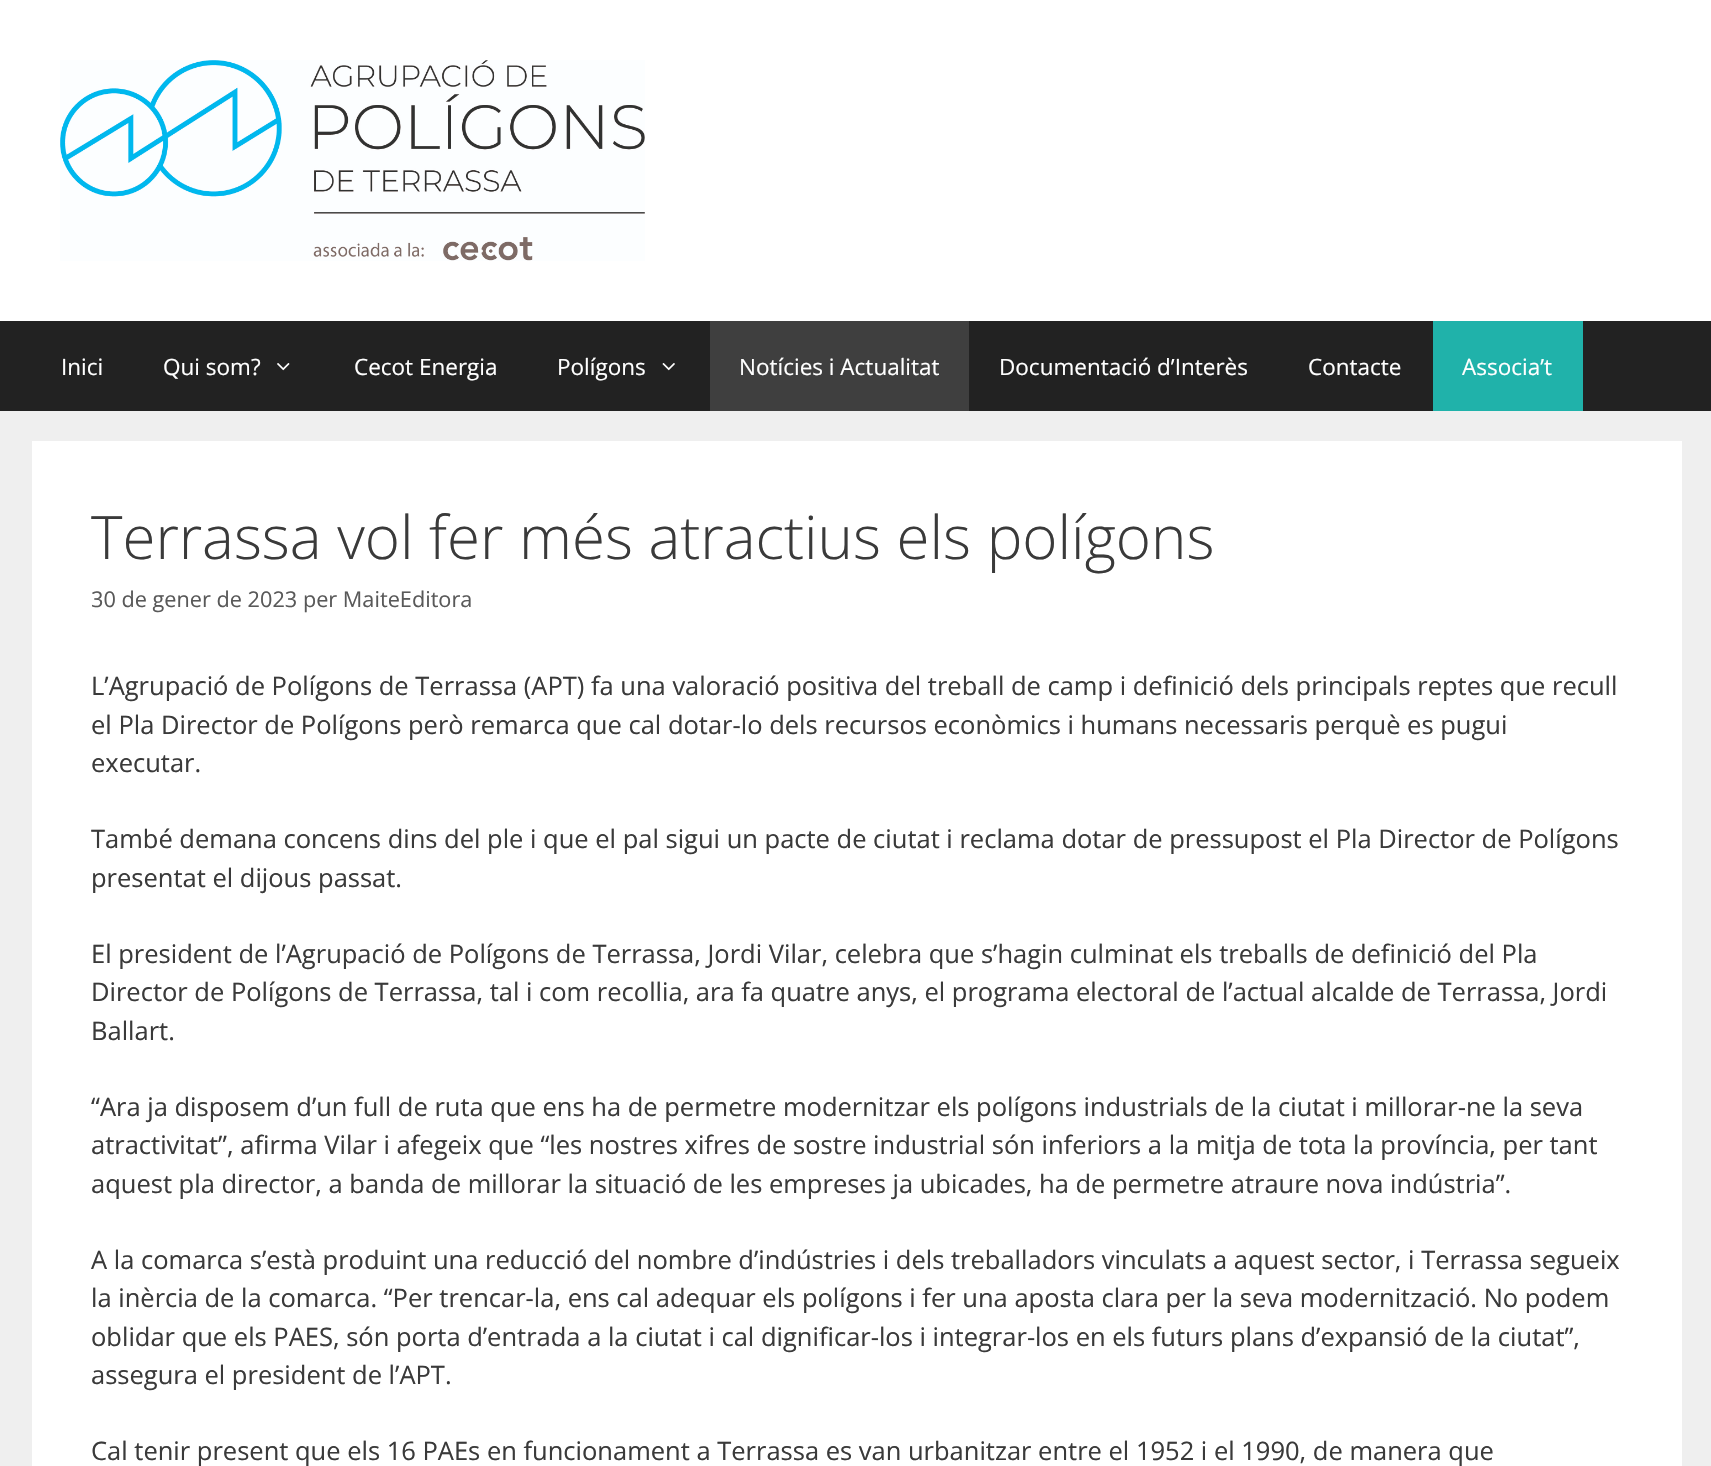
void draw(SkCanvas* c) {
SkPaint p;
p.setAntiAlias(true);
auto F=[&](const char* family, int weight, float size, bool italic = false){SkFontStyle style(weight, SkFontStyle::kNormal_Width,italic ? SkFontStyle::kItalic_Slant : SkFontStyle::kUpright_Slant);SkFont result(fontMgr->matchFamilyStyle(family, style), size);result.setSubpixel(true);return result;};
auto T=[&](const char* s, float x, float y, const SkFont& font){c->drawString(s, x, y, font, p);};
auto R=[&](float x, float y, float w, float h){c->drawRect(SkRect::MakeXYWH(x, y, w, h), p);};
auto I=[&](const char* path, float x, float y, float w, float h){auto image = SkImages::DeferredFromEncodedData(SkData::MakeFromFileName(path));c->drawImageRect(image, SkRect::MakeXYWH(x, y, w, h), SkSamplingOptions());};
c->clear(0xffefefef);
p.setColor(0xffffffff);
R(0,0,1711,321);
I("1.png",60,60,585,201);
p.setColor(0xff222222);
R(0,321,1711,90);
auto f1 = F("Open Sans",400,22.5);
p.setColor(0xffffffff);
T("Inici",61,375,f1);
T("Qui som?",163,375,f1);
I("2.png",277,363,13,8);
T("Cecot Energia",354,375,f1);
T("Polígons",557,375,f1);
I("3.png",662,363,13,8);
p.setColor(0xff3f3f3f);
R(710,321,259,90);
p.setColor(0xffffffff);
T("Notícies i Actualitat",739,375,f1);
T("Documentació d’Interès",999,375,f1);
T("Contacte",1308,375,f1);
p.setColor(0xff20b2aa);
R(1433,321,150,90);
p.setColor(0xffffffff);
T("Associa’t",1462,375,f1);
R(32,441,1650,1025);
auto f2 = F("Open Sans",300,60);
p.setColor(0xff3a3a3a);
T("Terrassa vol fer més atractius els polígons",91,559,f2);
auto f3 = F("Open Sans",400,21.7);
p.setColor(0xff595959);
T("30 de gener de 2023 per MaiteEditora",91,607,f3);
auto f4 = F("Open Sans",400,25.5);
p.setColor(0xff3a3a3a);
T("L’Agrupació de Polígons de Terrassa (APT) fa una valoració positiva del treball de camp i definició dels principals reptes que recull",91,695,f4);
T("el Pla Director de Polígons però remarca que cal dotar-lo dels recursos econòmics i humans necessaris perquè es pugui",91,734,f4);
T("executar.",91,772,f4);
T("També demana concens dins del ple i que el pal sigui un pacte de ciutat i reclama dotar de pressupost el Pla Director de Polígons",91,848,f4);
T("presentat el dijous passat.",91,887,f4);
T("El president de l’Agrupació de Polígons de Terrassa, Jordi Vilar, celebra que s’hagin culminat els treballs de definició del Pla",91,963,f4);
T("Director de Polígons de Terrassa, tal i com recollia, ara fa quatre anys, el programa electoral de l’actual alcalde de Terrassa, Jordi",91,1001,f4);
T("Ballart.",91,1040,f4);
T("“Ara ja disposem d’un full de ruta que ens ha de permetre modernitzar els polígons industrials de la ciutat i millorar-ne la seva",91,1116,f4);
T("atractivitat”, afirma Vilar i afegeix que “les nostres xifres de sostre industrial són inferiors a la mitja de tota la província, per tant",91,1154,f4);
T("aquest pla director, a banda de millorar la situació de les empreses ja ubicades, ha de permetre atraure nova indústria”.",91,1193,f4);
T("A la comarca s’està produint una reducció del nombre d’indústries i dels treballadors vinculats a aquest sector, i Terrassa segueix",91,1269,f4);
T("la inèrcia de la comarca. “Per trencar-la, ens cal adequar els polígons i fer una aposta clara per la seva modernització. No podem",91,1307,f4);
T("oblidar que els PAES, són porta d’entrada a la ciutat i cal dignificar-los i integrar-los en els futurs plans d’expansió de la ciutat”,",91,1346,f4);
T("assegura el president de l’APT.",91,1384,f4);
T("Cal tenir present que els 16 PAEs en funcionament a Terrassa es van urbanitzar entre el 1952 i el 1990, de manera que",91,1460,f4);
}
